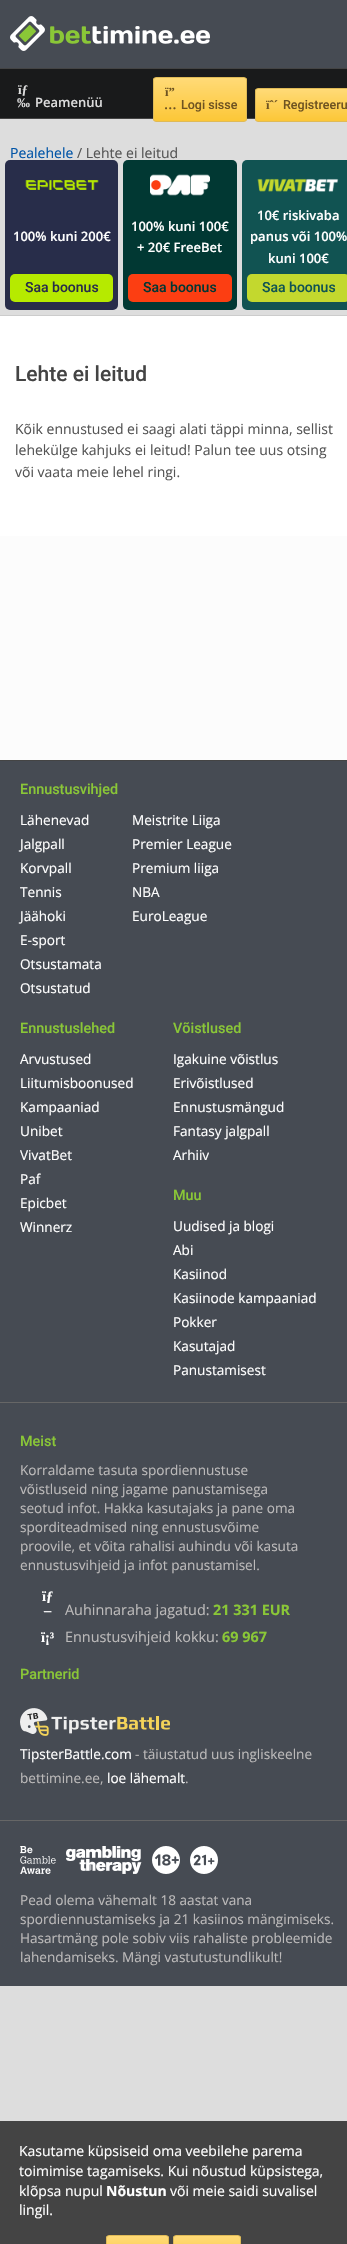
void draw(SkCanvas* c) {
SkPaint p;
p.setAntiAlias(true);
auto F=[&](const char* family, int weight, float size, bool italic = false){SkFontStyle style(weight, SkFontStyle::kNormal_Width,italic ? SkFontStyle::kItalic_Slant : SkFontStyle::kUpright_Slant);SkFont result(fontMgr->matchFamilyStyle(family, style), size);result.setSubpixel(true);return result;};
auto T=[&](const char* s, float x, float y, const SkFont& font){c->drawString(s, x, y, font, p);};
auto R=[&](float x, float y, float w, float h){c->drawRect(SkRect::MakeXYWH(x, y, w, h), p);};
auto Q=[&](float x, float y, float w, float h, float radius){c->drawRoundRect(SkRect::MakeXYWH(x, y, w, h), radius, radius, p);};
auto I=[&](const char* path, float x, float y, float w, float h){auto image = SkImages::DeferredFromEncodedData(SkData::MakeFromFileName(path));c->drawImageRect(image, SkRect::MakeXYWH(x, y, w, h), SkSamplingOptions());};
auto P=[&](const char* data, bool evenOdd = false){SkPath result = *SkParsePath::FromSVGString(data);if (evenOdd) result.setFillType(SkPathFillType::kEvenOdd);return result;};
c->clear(0xffdddddd);
I("1.png",0,0,347,119);
I("2.png",10,16,200,35);
auto f1 = F("Liberation Serif",700,13);
p.setColor(0xffdddddd);
T("ïƒ",18,94,f1);
T("‰",17,107,f1);
auto f2 = F("Open Sans",600,13);
T("Peamenüü",35,107,f2);
c->save();
c->clipPath(P("M156 77h88c1.5 0 3 1.5 3 3v39c0 1.5-1.5 3-3 3h-88c-1.5 0-3-1.5-3-3v-39c0-1.5 1.5-3 3-3z"),true);
{
const SkColor colors[] = {0xffffda77,0xfffcc737};
const float stops[] = {0,1};
const SkPoint ends[] = {{200,78}, {200,121}};
p.setShader(SkGradientShader::MakeLinear(ends, colors, stops, 2, SkTileMode::kClamp));
p.setAlpha(255);
}
R(153,78,94,43);
c->restore();
p.setStroke(true);
p.setStrokeWidth(1);
p.setShader(nullptr);
p.setColor(0xffdfba57);
c->drawRoundRect(SkRect::MakeXYWH(153.5,77.5,93,44),2.5,2.5,p);
auto f3 = F("Liberation Serif",700,12.5);
p.setStroke(false);
p.setColor(0xff6e5321);
T("ï”",165,96,f3);
T("…",164,109,f3);
auto f4 = F("Roboto",500,12.5);
T("Logi sisse",181,109,f4);
c->save();
c->clipPath(P("M258 88h96c1.5 0 3 1.5 3 3v28c0 1.5-1.5 3-3 3h-96c-1.5 0-3-1.5-3-3v-28c0-1.5 1.5-3 3-3z"),true);
{
const SkColor colors[] = {0xffffda77,0xfffcc737};
const float stops[] = {0,1};
const SkPoint ends[] = {{306,89}, {306,121}};
p.setShader(SkGradientShader::MakeLinear(ends, colors, stops, 2, SkTileMode::kClamp));
p.setAlpha(255);
}
R(255,89,92,32);
c->restore();
p.setStroke(true);
p.setShader(nullptr);
p.setColor(0xffdfba57);
c->drawRoundRect(SkRect::MakeXYWH(255.5,88.5,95,33),2.5,2.5,p);
p.setStroke(false);
p.setColor(0xff6e5321);
T("ïˆ´",266,109,f3);
T("Registreeru",283,109,f4);
auto f5 = F("Open Sans",400,14);
p.setColor(0xff0054a7);
T("Pealehele",10,158,f5);
p.setColor(0xff555555);
T("/ Lehte ei leitud",77,158,f5);
p.setColor(0xfffcfcfc);
R(0,536,347,224);
p.setColor(0xff282d4a);
Q(5,160,113,150,5);
I("3.png",25,180,74,10);
p.setColor(0xffffffff);
T("100% kuni 200€",13,241,f2);
p.setColor(0xffb6ea00);
Q(10,274,103,28,5);
auto f6 = F("Roboto",500,14);
p.setColor(0xff282d4a);
T("Saa boonus",25,292,f6);
p.setColor(0xff013833);
Q(123,160,114,150,5);
I("4.png",150,174,60,22);
p.setColor(0xffffffff);
T("100% kuni 100€",131,231,f2);
T("+ 20€ FreeBet",137,252,f2);
p.setColor(0xfffc3e12);
Q(128,274,104,28,5);
p.setColor(0xff013833);
T("Saa boonus",143,292,f6);
p.setColor(0xff115352);
Q(242,160,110,150,5);
I("5.png",257,178,82,14);
p.setColor(0xffffffff);
T("10€ riskivaba",257,220,f2);
T("panus või 100%",250,241,f2);
T("kuni 100€",268,263,f2);
p.setColor(0xffc3d82e);
Q(247,274,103,28,5);
p.setColor(0xff115352);
T("Saa boonus",262,292,f6);
p.setColor(0xffffffff);
R(0,316,347,220);
p.setColor(0xffcccccc);
R(0,315,347,1);
auto f7 = F("Roboto",500,21);
p.setColor(0xff444444);
T("Lehte ei leitud",15,381,f7);
p.setColor(0xff555555);
T("Kõik ennustused ei saagi alati täppi minna, sellist",15,434,f5);
T("lehekülge kahjuks ei leitud! Palun tee uus otsing",15,455,f5);
T("või vaata meie lehel ringi.",15,477,f5);
p.setColor(0xff464b53);
R(0,761,347,1225);
p.setColor(0xff444444);
R(0,760,347,1);
p.setColor(0xff666666);
R(0,1402,347,1);
auto f8 = F("Roboto",500,14.4);
p.setColor(0xff8ac737);
T("Ennustusvihjed",20,794,f8);
auto f9 = F("Open Sans",400,13.6);
p.setColor(0xffffffff);
T("Lähenevad",20,825,f9);
T("Jalgpall",20,849,f9);
T("Korvpall",20,873,f9);
T("Tennis",20,897,f9);
T("Jäähoki",20,921,f9);
T("E-sport",20,945,f9);
T("Otsustamata",20,969,f9);
T("Otsustatud",20,993,f9);
T("Meistrite Liiga",132,825,f9);
T("Premier League",132,849,f9);
T("Premium liiga",132,873,f9);
T("NBA",132,897,f9);
T("EuroLeague",132,921,f9);
p.setColor(0xff8ac737);
T("Ennustuslehed",20,1033,f8);
p.setColor(0xffffffff);
T("Arvustused",20,1064,f9);
T("Liitumisboonused",20,1088,f9);
T("Kampaaniad",20,1112,f9);
T("Unibet",20,1136,f9);
T("VivatBet",20,1160,f9);
T("Paf",20,1184,f9);
T("Epicbet",20,1208,f9);
T("Winnerz",20,1232,f9);
p.setColor(0xff8ac737);
T("Võistlused",173,1033,f8);
p.setColor(0xffffffff);
T("Igakuine võistlus",173,1064,f9);
T("Erivõistlused",173,1088,f9);
T("Ennustusmängud",173,1112,f9);
T("Fantasy jalgpall",173,1136,f9);
T("Arhiiv",173,1160,f9);
p.setColor(0xff8ac737);
T("Muu",173,1200,f8);
p.setColor(0xffffffff);
T("Uudised ja blogi",173,1231,f9);
T("Abi",173,1255,f9);
T("Kasiinod",173,1279,f9);
T("Kasiinode kampaaniad",173,1303,f9);
T("Pokker",173,1327,f9);
T("Kasutajad",173,1351,f9);
T("Panustamisest",173,1375,f9);
p.setColor(0xff666666);
R(0,1820,347,1);
p.setColor(0xff8ac737);
T("Meist",20,1446,f8);
p.setColor(0xffbcbaba);
T("Korraldame tasuta spordiennustuse",20,1475,f9);
T("võistluseid ning jagame panustamisega",20,1494,f9);
T("seotud infot. Hakka kasutajaks ja pane oma",20,1513,f9);
T("sporditeadmised ning ennustusvõime",20,1532,f9);
T("proovile, et võita rahalisi auhindu või kasuta",20,1551,f9);
T("ennustusvihjeid ja infot panustamisel.",20,1570,f9);
auto f10 = F("Liberation Serif",700,14.4);
p.setColor(0xffffffff);
T("ïƒ",42,1601,f10);
T("–",44,1615,f10);
auto f11 = F("Open Sans",400,14.4);
p.setColor(0xffbcbaba);
T("Auhinnaraha jagatud:",65,1615,f11);
auto f12 = F("Open Sans",700,14.4);
p.setColor(0xff8ac737);
T("21 331 EUR",213,1615,f12);
p.setColor(0xffffffff);
T("ï¡³",41,1642,f10);
p.setColor(0xffbcbaba);
T("Ennustusvihjeid kokku:",65,1642,f11);
p.setColor(0xff8ac737);
T("69 967",222,1642,f12);
T("Partnerid",20,1679,f8);
I("6.png",20,1708,150,28);
p.setColor(0xffffffff);
T("TipsterBattle.com",20,1759,f9);
p.setColor(0xffbcbaba);
T("- täiustatud uus ingliskeelne",135,1759,f9);
T("bettimine.ee,",20,1783,f9);
p.setColor(0xffffffff);
T("loe lähemalt",107,1783,f9);
p.setColor(0xffbcbaba);
T(".",185,1783,f9);
I("7.png",20,1846,36,28);
I("8.png",66,1846,76,28);
I("9.png",152,1846,28,28);
I("10.png",190,1846,28,28);
T("Pead olema vähemalt 18 aastat vana",20,1905,f9);
T("spordiennustamiseks ja 21 kasiinos mängimiseks.",20,1924,f9);
T("Hasartmäng pole sobiv viis rahaliste probleemide",20,1943,f9);
T("lahendamiseks. Mängi vastutustundlikult!",20,1962,f9);
p.setColor(0xff444444);
R(0,2121,347,123);
p.setColor(0xffffffff);
T("Kasutame küpsiseid oma veebilehe parema",19,2156,f5);
T("toimimise tagamiseks. Kui nõustud küpsistega,",19,2176,f5);
T("klõpsa nupul",19,2196,f5);
auto f13 = F("Open Sans",700,14);
T("Nõustun",106,2196,f13);
T("või meie saidi suvalisel",170,2196,f5);
T("lingil.",19,2215,f5);
c->save();
c->clipPath(P("M109 2235h57c1.5 0 3 1.5 3 3v27c0 1.5-1.5 3-3 3h-57c-1.5 0-3-1.5-3-3v-27c0-1.5 1.5-3 3-3z"),true);
{
const SkColor colors[] = {0xffffda77,0xfffcc737};
const float stops[] = {0,1};
const SkPoint ends[] = {{138,2236}, {138,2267}};
p.setShader(SkGradientShader::MakeLinear(ends, colors, stops, 2, SkTileMode::kClamp));
p.setAlpha(255);
}
R(106,2236,63,8);
c->restore();
p.setStroke(true);
p.setShader(nullptr);
p.setColor(0xffdfba57);
c->drawRoundRect(SkRect::MakeXYWH(106.5,2235.5,62,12),2.5,2.5,p);
c->save();
c->clipPath(P("M176 2235h62c1.5 0 3 1.5 3 3v27c0 1.5-1.5 3-3 3h-62c-1.5 0-3-1.5-3-3v-27c0-1.5 1.5-3 3-3z"),true);
p.setStroke(false);
{
const SkColor colors[] = {0xffffda77,0xfffcc737};
const float stops[] = {0,1};
const SkPoint ends[] = {{207,2236}, {207,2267}};
p.setShader(SkGradientShader::MakeLinear(ends, colors, stops, 2, SkTileMode::kClamp));
p.setAlpha(255);
}
R(173,2236,68,8);
c->restore();
p.setStroke(true);
p.setShader(nullptr);
p.setColor(0xffdfba57);
c->drawRoundRect(SkRect::MakeXYWH(173.5,2235.5,67,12),2.5,2.5,p);
}
